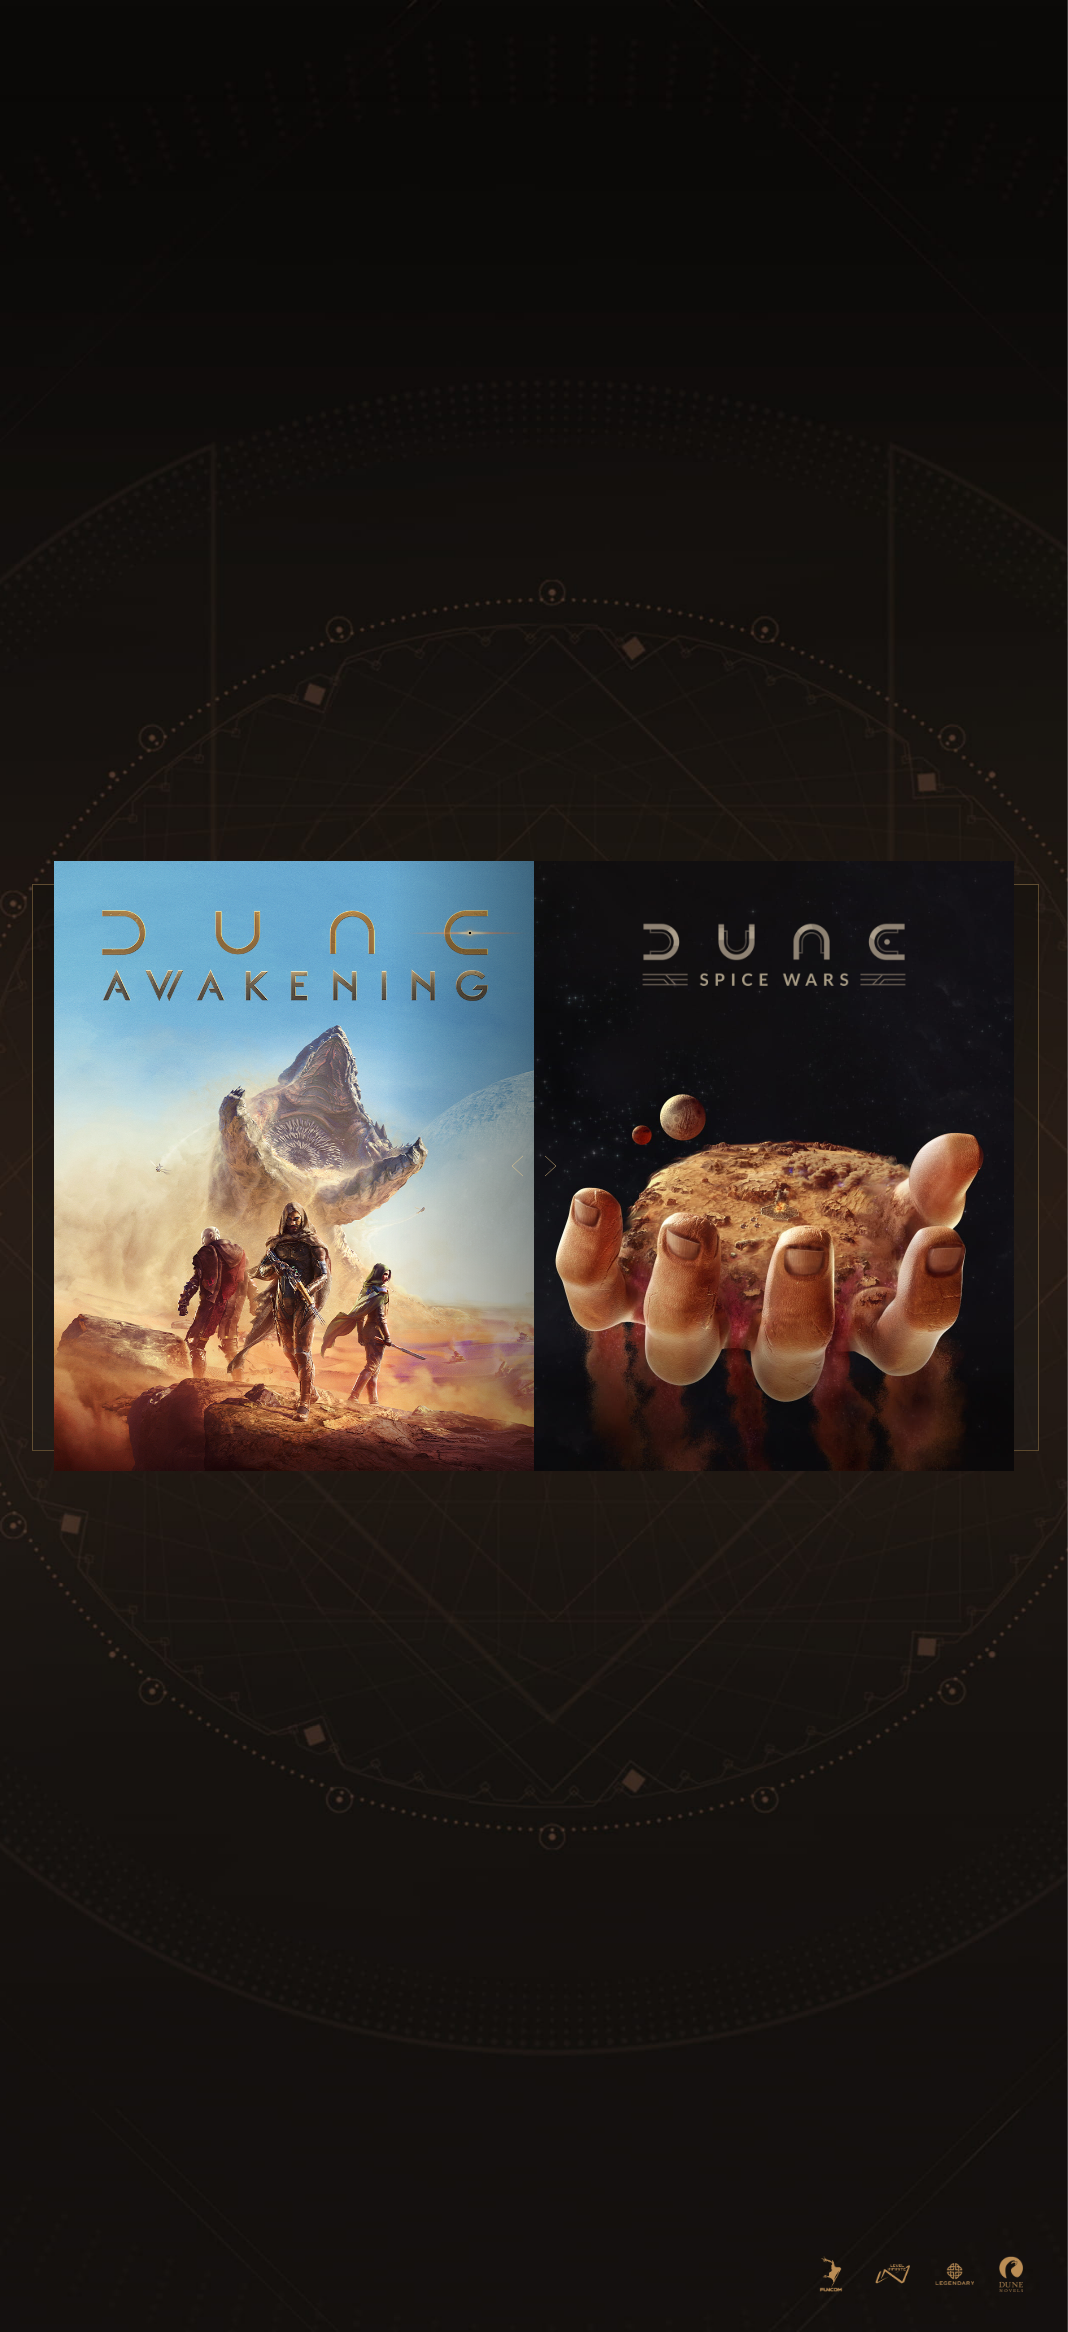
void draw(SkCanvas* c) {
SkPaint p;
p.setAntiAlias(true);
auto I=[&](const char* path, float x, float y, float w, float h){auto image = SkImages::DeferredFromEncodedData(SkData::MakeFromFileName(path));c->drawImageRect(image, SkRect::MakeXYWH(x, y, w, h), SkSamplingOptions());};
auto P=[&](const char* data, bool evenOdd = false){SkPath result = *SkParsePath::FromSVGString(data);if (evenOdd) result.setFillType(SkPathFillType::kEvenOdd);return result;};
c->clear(0xffffffff);
I("1.png",0,0,1068,2332);
p.setStroke(true);
p.setStrokeWidth(1);
p.setColor(0x66c1995b);
c->drawRect(SkRect::MakeXYWH(32.5,884.5,1006,566),p);
I("2.png",54,861,480,610);
p.setStrokeWidth(.5);
p.setColor(0xfff4cf8b);
c->drawPath(P("M523 1156l-11 10l11 10"),p);
I("3.png",534,861,480,610);
I("4.png",642,923,264,63);
c->drawPath(P("M545 1156l11 10l-11 10"),p);
I("5.png",819,2256,24,36);
I("6.png",875,2264,35,20);
I("7.png",935,2263,39,22);
I("8.png",999,2256,24,36);
}
